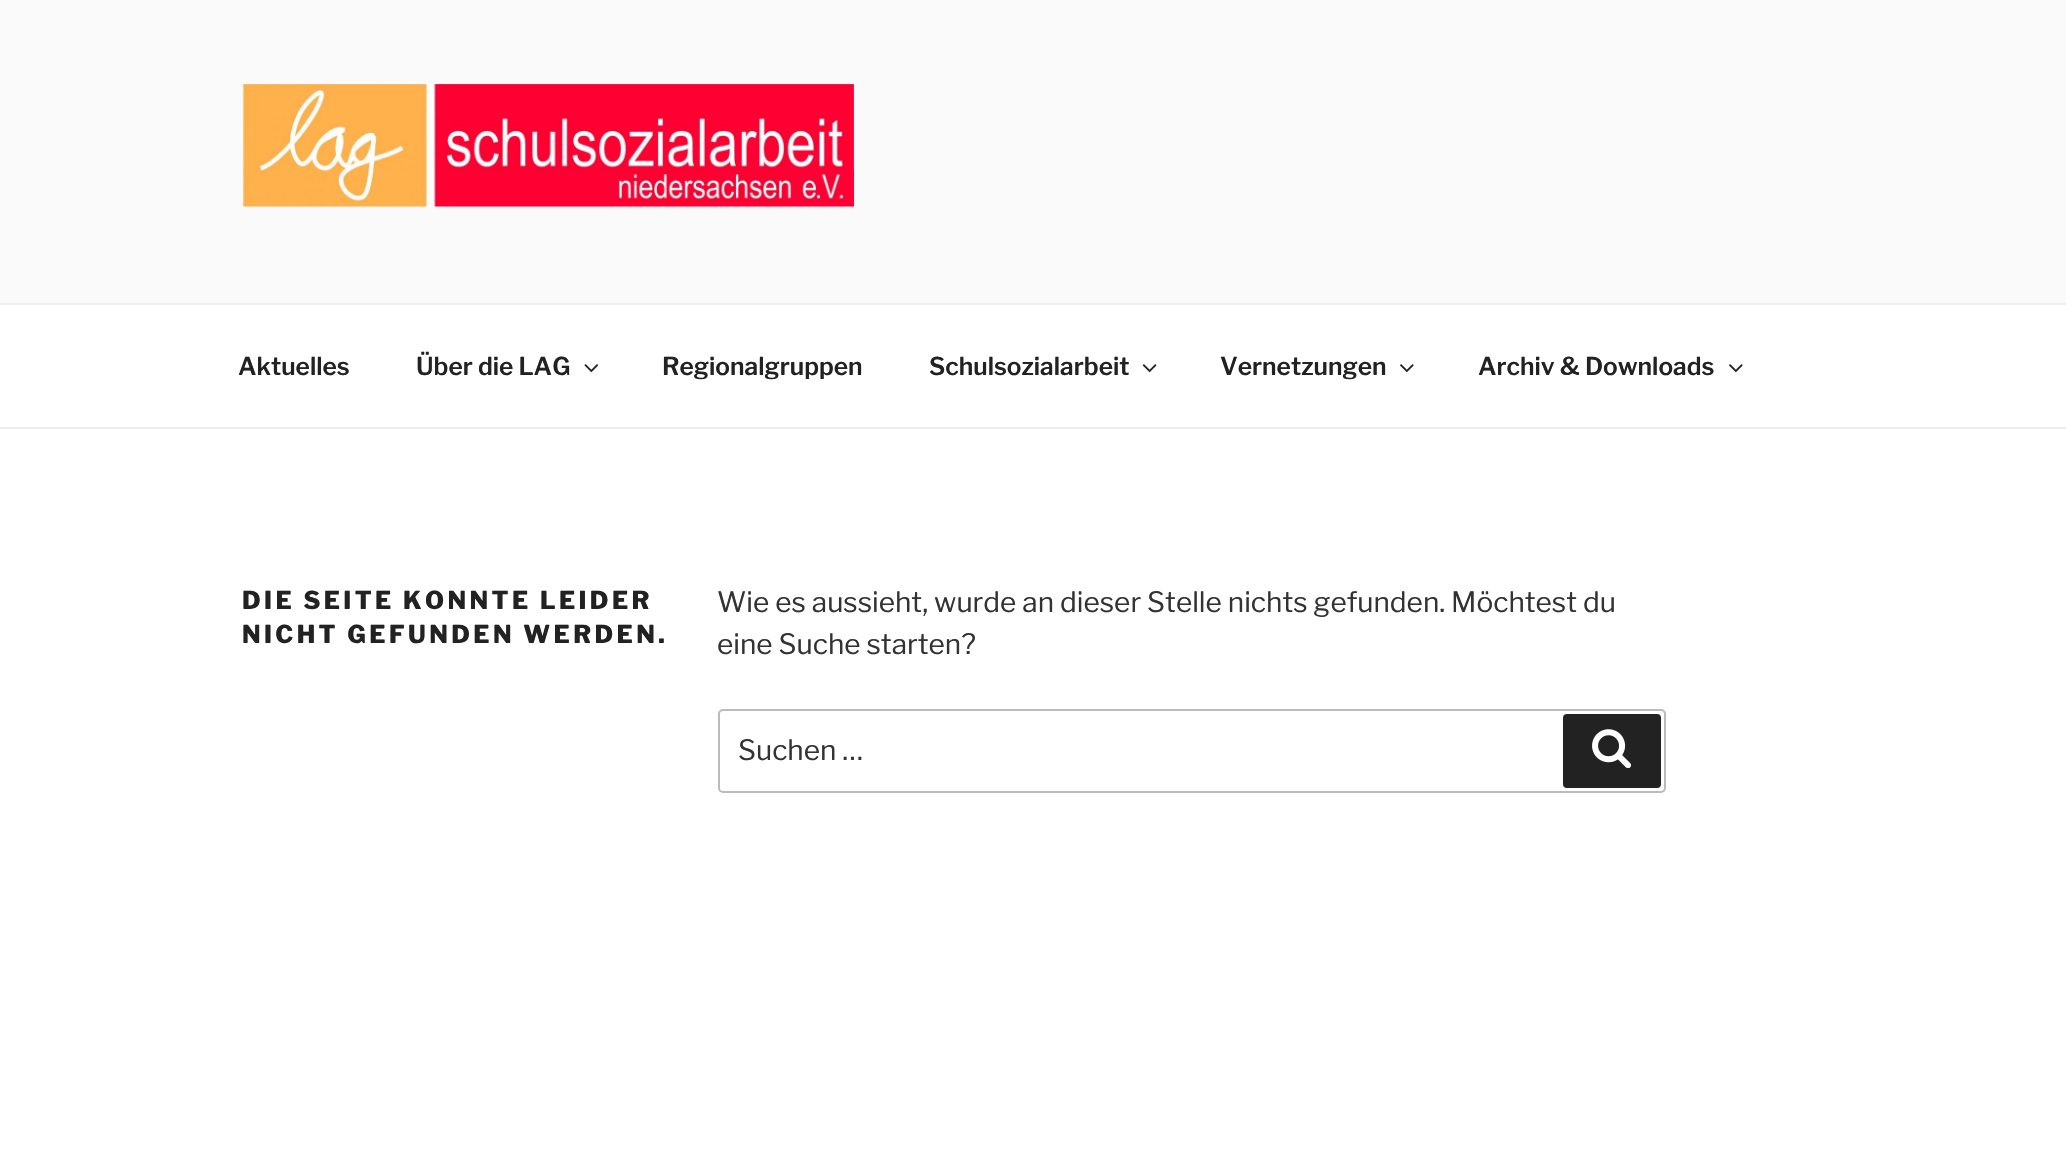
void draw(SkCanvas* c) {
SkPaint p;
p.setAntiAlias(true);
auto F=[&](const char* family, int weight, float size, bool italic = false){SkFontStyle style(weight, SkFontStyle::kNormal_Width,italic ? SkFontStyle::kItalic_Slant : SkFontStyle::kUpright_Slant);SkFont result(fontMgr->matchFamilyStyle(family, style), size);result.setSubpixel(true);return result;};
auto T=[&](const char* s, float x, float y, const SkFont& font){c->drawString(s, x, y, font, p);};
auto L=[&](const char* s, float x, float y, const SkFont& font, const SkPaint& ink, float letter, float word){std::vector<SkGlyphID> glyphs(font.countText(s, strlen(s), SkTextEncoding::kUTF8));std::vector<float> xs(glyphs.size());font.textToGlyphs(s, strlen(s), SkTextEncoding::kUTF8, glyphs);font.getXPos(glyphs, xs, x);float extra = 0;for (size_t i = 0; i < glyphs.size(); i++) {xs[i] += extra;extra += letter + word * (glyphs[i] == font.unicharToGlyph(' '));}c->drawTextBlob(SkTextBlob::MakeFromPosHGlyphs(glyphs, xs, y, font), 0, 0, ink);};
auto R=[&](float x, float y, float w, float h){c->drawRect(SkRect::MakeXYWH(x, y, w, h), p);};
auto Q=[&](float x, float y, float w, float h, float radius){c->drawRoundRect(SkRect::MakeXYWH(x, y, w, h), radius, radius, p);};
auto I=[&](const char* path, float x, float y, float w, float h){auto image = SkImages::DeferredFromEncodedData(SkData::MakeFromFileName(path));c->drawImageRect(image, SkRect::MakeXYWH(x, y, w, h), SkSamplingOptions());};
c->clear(0xffffffff);
p.setColor(0xfffafafa);
R(0,0,2066,303);
I("1.png",243,84,611,123);
p.setColor(0xffeeeeee);
R(0,303,2066,2);
R(0,427,2066,2);
auto f1 = F("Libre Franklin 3",100,24.5);
p.setColor(0xff222222);
T("Aktuelles",238,375,f1);
T("Über die LAG",416,375,f1);
I("2.png",584,364,15,9);
T("Regionalgruppen",662,375,f1);
T("Schulsozialarbeit",929,375,f1);
I("3.png",1142,364,15,9);
T("Vernetzungen",1220,375,f1);
I("4.png",1400,364,14,9);
T("Archiv & Downloads",1478,375,f1);
I("4.png",1729,364,14,9);
auto f2 = F("Libre Franklin",100,24.5);
L("DIE SEITE KONNTE LEIDER",242,609,f2,p,3.4,0);
L("NICHT GEFUNDEN WERDEN.",242,643,f2,p,3.4,0);
auto f3 = F("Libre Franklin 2",100,28);
p.setColor(0xff333333);
T("Wie es aussieht, wurde an dieser Stelle nichts gefunden. Möchtest du",717,612,f3);
T("eine Suche starten?",717,654,f3);
p.setStroke(true);
p.setStrokeWidth(2);
p.setColor(0xffbbbbbb);
c->drawRoundRect(SkRect::MakeXYWH(719,710,946,82),4,4,p);
p.setStroke(false);
p.setColor(0xff333333);
T("Suchen …",738,760,f3);
p.setColor(0xff222222);
Q(1563,714,98,74,4);
I("5.png",1592,729,39,39);
}
